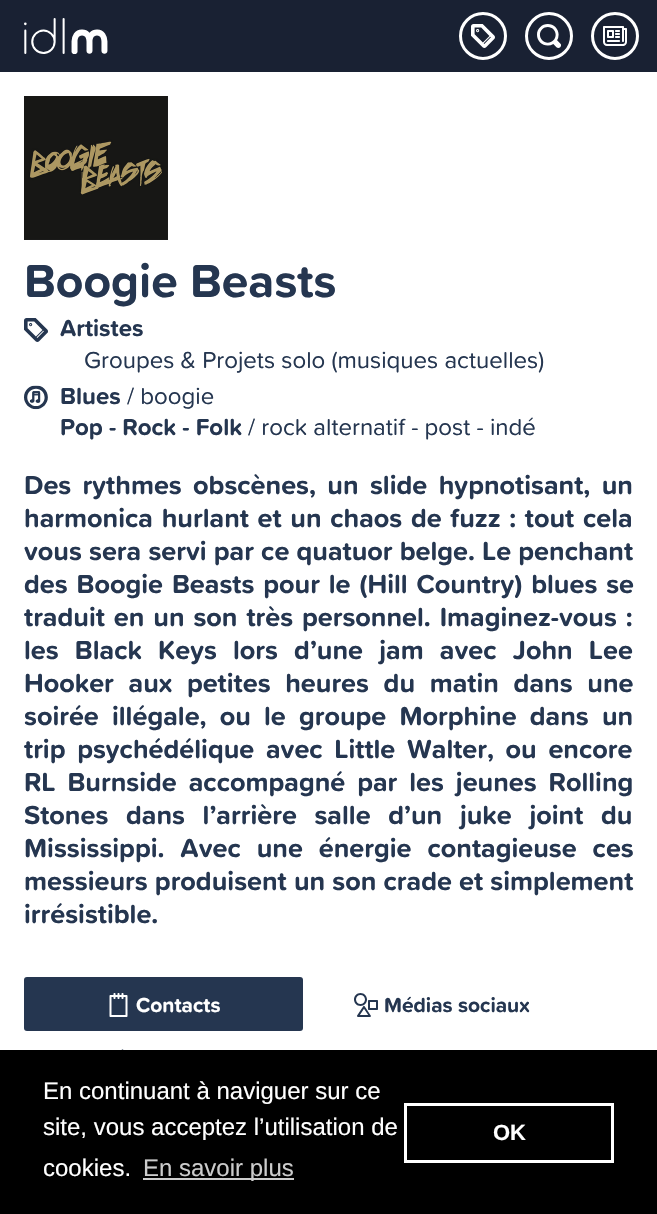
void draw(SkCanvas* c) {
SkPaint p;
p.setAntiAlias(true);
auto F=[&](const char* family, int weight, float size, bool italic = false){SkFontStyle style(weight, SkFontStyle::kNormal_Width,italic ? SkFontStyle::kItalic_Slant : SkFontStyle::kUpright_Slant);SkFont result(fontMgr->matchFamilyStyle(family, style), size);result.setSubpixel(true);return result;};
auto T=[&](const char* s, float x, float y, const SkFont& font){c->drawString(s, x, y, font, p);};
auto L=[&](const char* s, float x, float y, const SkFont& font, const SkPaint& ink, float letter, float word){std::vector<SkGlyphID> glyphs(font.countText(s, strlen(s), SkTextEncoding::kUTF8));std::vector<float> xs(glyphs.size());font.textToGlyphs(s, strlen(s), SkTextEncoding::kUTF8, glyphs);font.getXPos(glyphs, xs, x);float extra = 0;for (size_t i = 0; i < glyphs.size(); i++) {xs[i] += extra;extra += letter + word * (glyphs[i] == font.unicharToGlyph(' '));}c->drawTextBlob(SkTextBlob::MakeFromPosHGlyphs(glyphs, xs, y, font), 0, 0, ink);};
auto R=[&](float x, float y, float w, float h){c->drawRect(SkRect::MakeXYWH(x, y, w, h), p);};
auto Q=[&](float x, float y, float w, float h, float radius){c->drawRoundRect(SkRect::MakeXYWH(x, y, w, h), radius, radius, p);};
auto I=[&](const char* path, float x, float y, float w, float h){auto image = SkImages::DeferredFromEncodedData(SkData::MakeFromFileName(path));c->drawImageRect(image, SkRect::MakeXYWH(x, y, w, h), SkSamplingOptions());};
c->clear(0xffffffff);
p.setColor(0xff192133);
R(0,0,657,72);
I("1.png",24,18,84,36);
p.setStroke(true);
p.setStrokeWidth(3);
p.setColor(0xffffffff);
c->drawCircle(483,36,22.5,p);
I("2.png",471,24,24,24);
c->drawCircle(549,36,22.5,p);
I("3.png",537,24,24,24);
c->drawCircle(615,36,22.5,p);
I("4.png",603,26,24,20);
I("5.png",24,96,144,144);
auto f1 = F("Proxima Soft",700,48);
p.setStroke(false);
p.setColor(0xff253650);
T("Boogie Beasts",24,297,f1);
I("6.png",24,318,24,24);
auto f2 = F("Proxima Soft",700,24);
T("Artistes",60,336,f2);
auto f3 = F("Proxima Soft",400,24);
T("Groupes & Projets solo (musiques actuelles)",84,368,f3);
I("7.png",24,385,24,25);
T("Blues",60,404,f2);
T("/ boogie",127,404,f3);
T("Pop - Rock - Folk",60,435,f2);
T("/ rock alternatif - post - indé",248,435,f3);
auto f4 = F("Proxima Soft",700,27);
L("Des rythmes obscènes, un slide hypnotisant, un",24,494,f4,p,0,4.5);
L("harmonica hurlant et un chaos de fuzz : tout cela",24,527,f4,p,0,1.75);
L("vous sera servi par ce quatuor belge. Le penchant",24,560,f4,p,0,.25);
L("des Boogie Beasts pour le (Hill Country) blues se",24,593,f4,p,0,2);
L("traduit en un son très personnel. Imaginez-vous :",24,626,f4,p,0,2);
L("les Black Keys lors d’une jam avec John Lee",24,659,f4,p,0,9.25);
L("Hooker aux petites heures du matin dans une",24,692,f4,p,0,7.75);
L("soirée illégale, ou le groupe Morphine dans un",24,725,f4,p,0,6.25);
L("trip psychédélique avec Little Walter, ou encore",24,758,f4,p,0,4.75);
L("RL Burnside accompagné par les jeunes Rolling",24,791,f4,p,0,5);
L("Stones dans l’arrière salle d’un juke joint du",24,824,f4,p,0,10.75);
L("Mississippi. Avec une énergie contagieuse ces",24,857,f4,p,0,9);
L("messieurs produisent un son crade et simplement",24,890,f4,p,0,.25);
T("irrésistible.",24,923,f4);
Q(24,977,279,54,3);
I("8.png",109,993,19,24);
auto f5 = F("Proxima Soft",700,21);
p.setColor(0xffffffff);
T("Contacts",136,1012,f5);
I("9.png",354,993,24,24);
p.setColor(0xff253650);
T("Médias sociaux",384,1012,f5);
I("10.png",121,1049,3,1);
p.setColor(0xff000000);
R(0,1050,657,164);
auto f6 = F("Liberation Sans",400,24);
p.setColor(0xffffffff);
T("En continuant à naviguer sur ce",43,1099,f6);
T("site, vous acceptez l’utilisation de",43,1135,f6);
T("cookies.",43,1176,f6);
p.setColor(0xffcccccc);
R(143,1178,151,2);
T("En savoir plus",143,1176,f6);
p.setStroke(true);
p.setColor(0xffffffff);
c->drawRect(SkRect::MakeXYWH(405.5,1104.5,207,57),p);
auto f7 = F("Liberation Sans",700,22);
p.setStroke(false);
T("OK",493,1140,f7);
}
